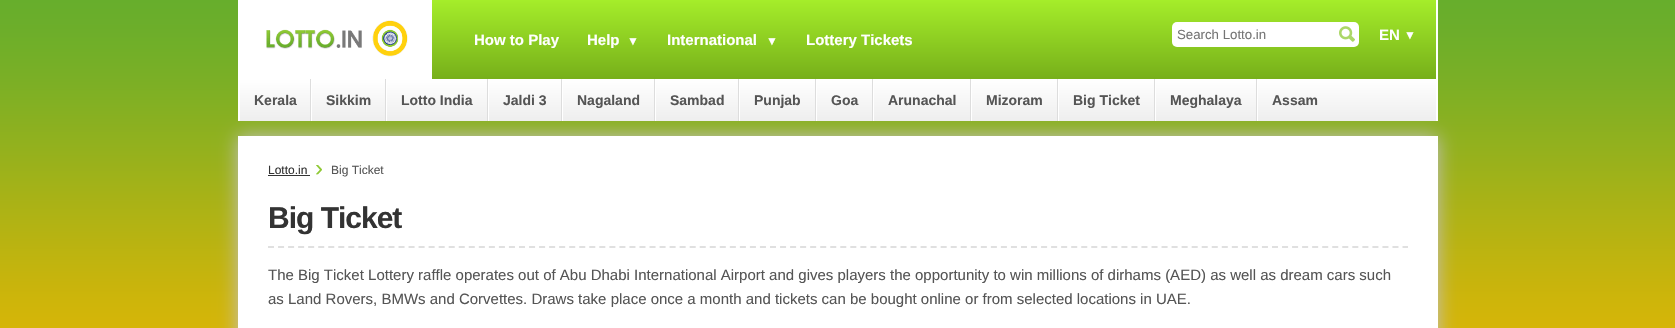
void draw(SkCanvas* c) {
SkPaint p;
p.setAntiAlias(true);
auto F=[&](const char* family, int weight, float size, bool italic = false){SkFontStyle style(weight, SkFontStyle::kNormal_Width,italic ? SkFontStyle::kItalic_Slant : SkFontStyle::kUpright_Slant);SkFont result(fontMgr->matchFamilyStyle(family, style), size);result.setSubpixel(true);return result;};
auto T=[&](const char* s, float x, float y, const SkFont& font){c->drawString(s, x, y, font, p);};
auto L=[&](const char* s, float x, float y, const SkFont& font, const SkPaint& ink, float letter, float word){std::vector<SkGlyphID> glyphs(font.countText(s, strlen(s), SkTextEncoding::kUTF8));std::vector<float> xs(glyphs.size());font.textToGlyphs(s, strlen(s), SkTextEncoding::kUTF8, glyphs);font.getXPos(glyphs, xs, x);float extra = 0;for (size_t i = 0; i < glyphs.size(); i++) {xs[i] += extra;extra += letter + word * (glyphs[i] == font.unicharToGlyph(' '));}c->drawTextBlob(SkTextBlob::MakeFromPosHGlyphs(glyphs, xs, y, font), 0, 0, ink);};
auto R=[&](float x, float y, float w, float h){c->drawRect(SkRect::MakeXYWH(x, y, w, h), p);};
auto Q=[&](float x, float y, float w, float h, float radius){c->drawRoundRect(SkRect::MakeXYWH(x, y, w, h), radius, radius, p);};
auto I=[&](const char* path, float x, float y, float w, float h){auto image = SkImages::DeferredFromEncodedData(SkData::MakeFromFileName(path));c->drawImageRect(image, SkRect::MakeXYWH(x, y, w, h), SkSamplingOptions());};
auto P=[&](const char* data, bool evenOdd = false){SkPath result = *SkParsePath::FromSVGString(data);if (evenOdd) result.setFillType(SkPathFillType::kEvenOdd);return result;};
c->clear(0xffffffff);
I("1.png",0,0,1675,328);
{
const SkColor colors[] = {0xffa5ed2a,0xff5f9012};
const float stops[] = {0,1};
const SkPoint ends[] = {{838,0}, {838,119}};
p.setShader(SkGradientShader::MakeLinear(ends, colors, stops, 2, SkTileMode::kClamp));
p.setAlpha(255);
}
R(432,0,1004,79);
p.setShader(nullptr);
p.setColor(0xffc1c1c1);
p.setMaskFilter(SkMaskFilter::MakeBlur(kNormal_SkBlurStyle, 9));
c->drawRect(SkRect::MakeXYWH(238,136,1200,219),p);
p.setMaskFilter(nullptr);
p.setColor(0xffffffff);
R(1436,0,2,121);
R(238,0,2,121);
R(240,0,192,79);
I("2.png",266,20,142,37);
auto f1 = F("Liberation Sans",700,15);
T("How to Play",474,45,f1);
T("Help",587,45,f1);
auto f2 = F("Liberation Sans",700,12);
T("▼",627,45,f2);
T("International",667,45,f1);
T("▼",766,45,f2);
T("Lottery Tickets",806,45,f1);
Q(1172,22,187,25,5);
auto f3 = F("Liberation Sans",400,13.25);
p.setColor(0xff757575);
T("Search Lotto.in",1177,39,f3);
I("3.png",1339,26,16,16);
p.setColor(0xffffffff);
T("EN",1379,40,f1);
T("▼",1404,39,f2);
{
const SkColor colors[] = {0xffffffff,0xffeeeeee};
const float stops[] = {0,1};
const SkPoint ends[] = {{838,79}, {838,121}};
p.setShader(SkGradientShader::MakeLinear(ends, colors, stops, 2, SkTileMode::kClamp));
p.setAlpha(255);
}
R(240,79,1196,42);
p.setShader(nullptr);
p.setColor(0xffdddddd);
R(310,79,1,42);
auto f4 = F("Liberation Sans",700,14);
p.setColor(0xff555555);
T("Kerala",254,105,f4);
p.setColor(0xffdddddd);
R(385,79,1,42);
p.setColor(0xffffffff);
R(311,79,1,42);
p.setColor(0xff555555);
T("Sikkim",326,105,f4);
p.setColor(0xffdddddd);
R(487,79,1,42);
p.setColor(0xffffffff);
R(386,79,1,42);
p.setColor(0xff555555);
T("Lotto India",401,105,f4);
p.setColor(0xffdddddd);
R(561,79,1,42);
p.setColor(0xffffffff);
R(488,79,1,42);
p.setColor(0xff555555);
T("Jaldi 3",503,105,f4);
p.setColor(0xffdddddd);
R(654,79,1,42);
p.setColor(0xffffffff);
R(562,79,1,42);
p.setColor(0xff555555);
T("Nagaland",577,105,f4);
p.setColor(0xffdddddd);
R(738,79,1,42);
p.setColor(0xffffffff);
R(655,79,1,42);
p.setColor(0xff555555);
T("Sambad",670,105,f4);
p.setColor(0xffdddddd);
R(815,79,1,42);
p.setColor(0xffffffff);
R(739,79,1,42);
p.setColor(0xff555555);
T("Punjab",754,105,f4);
p.setColor(0xffdddddd);
R(872,79,1,42);
p.setColor(0xffffffff);
R(816,79,1,42);
p.setColor(0xff555555);
T("Goa",831,105,f4);
p.setColor(0xffdddddd);
R(970,79,1,42);
p.setColor(0xffffffff);
R(873,79,1,42);
p.setColor(0xff555555);
T("Arunachal",888,105,f4);
p.setColor(0xffdddddd);
R(1057,79,1,42);
p.setColor(0xffffffff);
R(971,79,1,42);
p.setColor(0xff555555);
T("Mizoram",986,105,f4);
p.setColor(0xffdddddd);
R(1154,79,1,42);
p.setColor(0xffffffff);
R(1058,79,1,42);
p.setColor(0xff555555);
T("Big Ticket",1073,105,f4);
p.setColor(0xffdddddd);
R(1256,79,1,42);
p.setColor(0xffffffff);
R(1155,79,1,42);
p.setColor(0xff555555);
T("Meghalaya",1170,105,f4);
p.setColor(0xffffffff);
R(1257,79,1,42);
p.setColor(0xff555555);
T("Assam",1272,105,f4);
p.setColor(0xffffffff);
R(238,136,1200,192);
auto f5 = F("Liberation Sans",400,12);
p.setColor(0xff333333);
T("Lotto.in",268,174,f5);
R(268,175,42,1);
auto f6 = F("Liberation Sans",400,24);
p.setColor(0xff8fc934);
T("›",315,176,f6);
p.setColor(0xff555555);
T("Big Ticket",331,174,f5);
p.setStroke(true);
p.setStrokeWidth(2);
p.setColor(0xffe0e0e0);
p.setPathEffect(SkDashPathEffect::Make({{6,4.04f}}, 0));
c->drawPath(P("M268 247h1140"),p);
p.setPathEffect(nullptr);
auto f7 = F("Liberation Sans",700,30);
p.setStroke(false);
p.setColor(0xff333333);
L("Big Ticket",268,228,f7,p,-1,0);
auto f8 = F("Liberation Sans",400,15);
p.setColor(0xff555555);
T("The Big Ticket Lottery raffle operates out of Abu Dhabi International Airport and gives players the opportunity to win millions of dirhams (AED) as well as dream cars such",268,280,f8);
T("as Land Rovers, BMWs and Corvettes. Draws take place once a month and tickets can be bought online or from selected locations in UAE.",268,304,f8);
}
